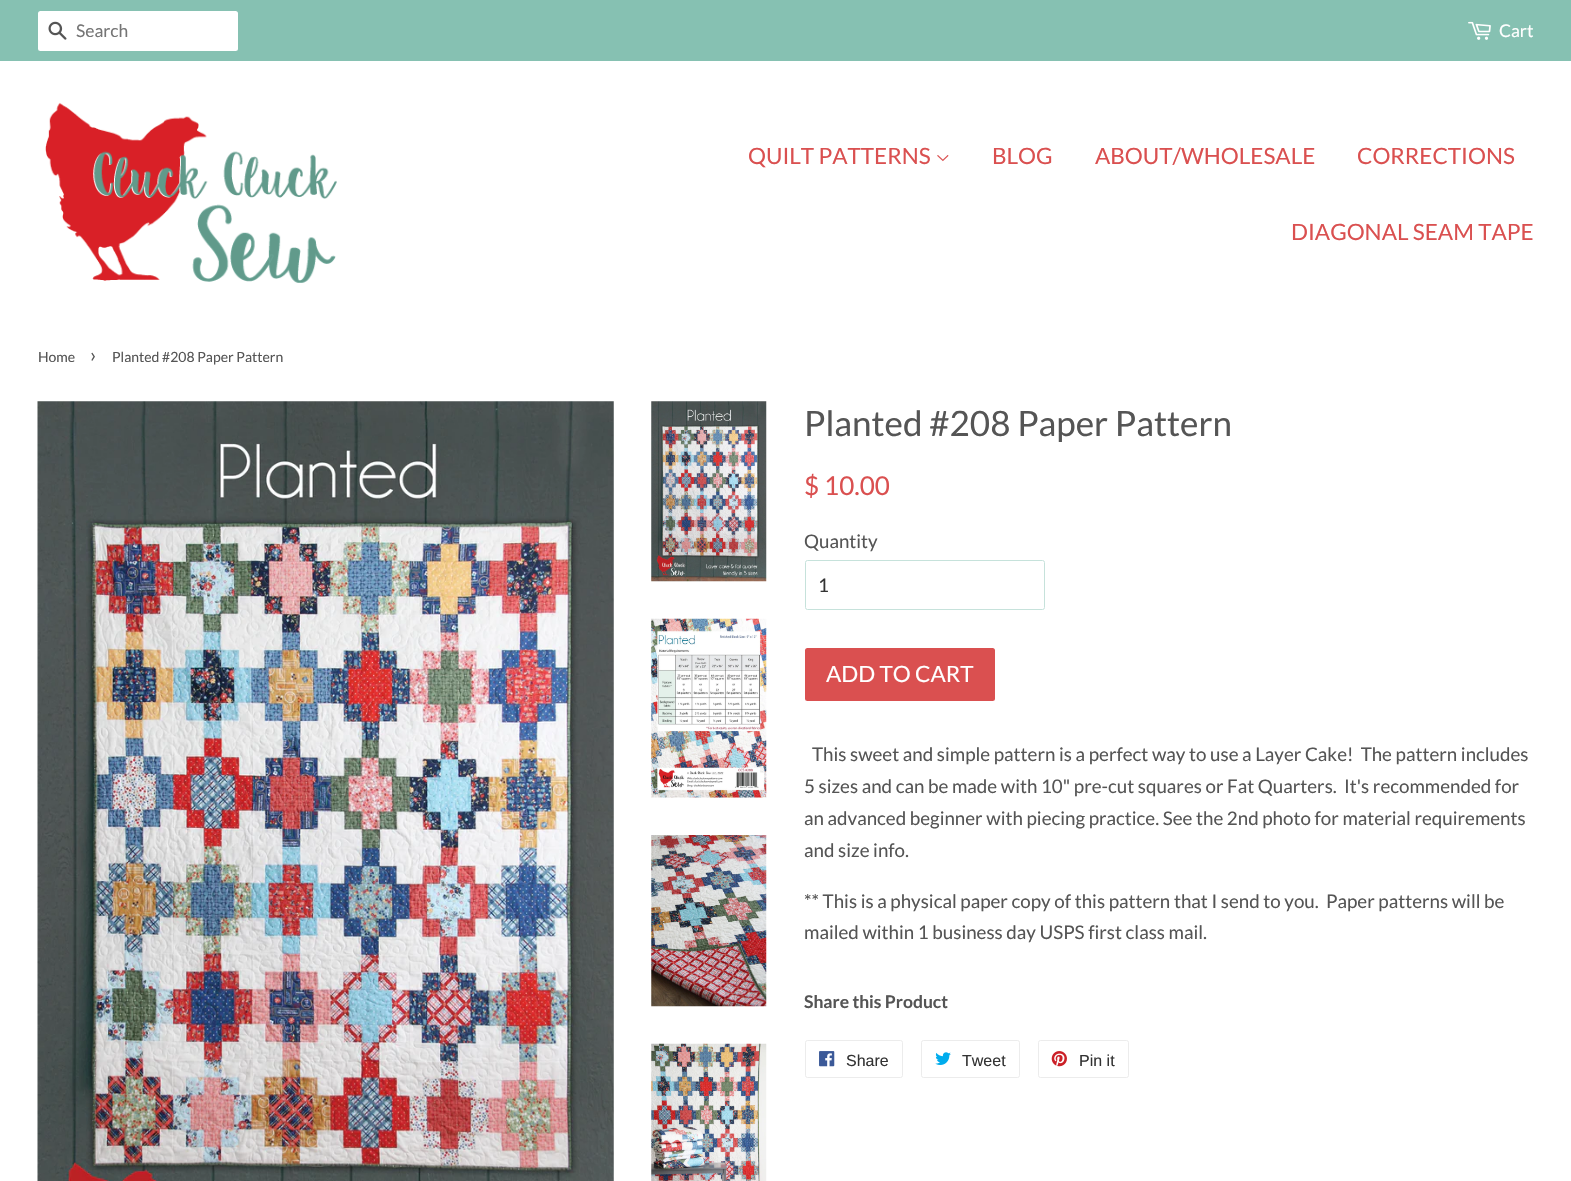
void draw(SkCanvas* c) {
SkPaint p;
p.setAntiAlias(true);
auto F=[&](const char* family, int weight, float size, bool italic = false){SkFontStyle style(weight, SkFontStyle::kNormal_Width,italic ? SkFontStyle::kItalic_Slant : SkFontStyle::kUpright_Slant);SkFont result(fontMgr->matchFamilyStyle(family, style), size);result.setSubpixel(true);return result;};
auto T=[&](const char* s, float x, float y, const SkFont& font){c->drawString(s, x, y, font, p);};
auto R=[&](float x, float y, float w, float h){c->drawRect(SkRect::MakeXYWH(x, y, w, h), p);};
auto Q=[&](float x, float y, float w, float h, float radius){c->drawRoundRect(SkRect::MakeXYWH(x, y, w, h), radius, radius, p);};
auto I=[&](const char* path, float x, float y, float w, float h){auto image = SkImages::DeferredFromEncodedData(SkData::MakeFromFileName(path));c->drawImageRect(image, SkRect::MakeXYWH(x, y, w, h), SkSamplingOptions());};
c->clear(0xffffffff);
p.setColor(0xff86c1b2);
R(0,0,1571,61);
p.setColor(0xffffffff);
Q(38,11,200,40,2.5);
I("1.png",48,21,19,19);
auto f1 = F("Lato",400,17.5);
p.setColor(0xff757575);
T("Search",76,37,f1);
I("2.png",1468,21,23,19);
p.setColor(0xffffffff);
T("Cart",1499,37,f1);
I("3.png",45,102,292,181);
auto f2 = F("Lato",400,22.5);
p.setColor(0xffda5050);
T("QUILT PATTERNS",748,164,f2);
I("4.png",937,155,12,7);
T("BLOG",992,164,f2);
T("ABOUT/WHOLESALE",1095,164,f2);
T("CORRECTIONS",1357,164,f2);
T("DIAGONAL SEAM TAPE",1291,240,f2);
auto f3 = F("Lato",400,14);
p.setColor(0xff555555);
T("Home",38,362,f3);
auto f4 = F("Lato",400,20);
T("›",90,362,f4);
T("Planted #208 Paper Pattern",112,362,f3);
I("5.png",37,401,577,780);
I("6.png",651,401,116,181);
I("7.png",651,618,116,180);
I("8.png",651,835,116,172);
I("9.png",651,1043,116,138);
auto f5 = F("Lato",400,35);
T("Planted #208 Paper Pattern",804,436,f5);
auto f6 = F("Lato",400,26);
p.setColor(0xffda5050);
T("$ 10.00",804,495,f6);
auto f7 = F("Lato",400,18.75);
p.setColor(0xff555555);
T("Quantity",804,548,f7);
p.setStroke(true);
p.setStrokeWidth(1);
p.setColor(0xffc6e2db);
c->drawRoundRect(SkRect::MakeXYWH(805.5,560.5,239,49),2,2,p);
p.setStroke(false);
p.setColor(0xff333333);
T("1",818,592,f7);
p.setColor(0xffda5050);
Q(805,648,190,53,2.5);
p.setColor(0xffffffff);
T("ADD TO CART",826,682,f2);
p.setColor(0xff555555);
T("This sweet and simple pattern is a perfect way to use a Layer Cake!  The pattern includes",812,761,f7);
T("5 sizes and can be made with 10\" pre-cut squares or Fat Quarters.  It's recommended for",804,793,f7);
T("an advanced beginner with piecing practice. See the 2nd photo for material requirements",804,825,f7);
T("and size info.",804,857,f7);
T("** This is a physical paper copy of this pattern that I send to you.  Paper patterns will be",804,908,f7);
T("mailed within 1 business day USPS first class mail.",804,939,f7);
auto f8 = F("Lato",700,17.5);
T("Share this Product",804,1008,f8);
p.setStroke(true);
p.setColor(0xffececec);
c->drawRoundRect(SkRect::MakeXYWH(805.5,1040.5,97,37),2,2,p);
I("10.png",819,1051,16,16);
auto f9 = F("Liberation Sans",400,16);
p.setStroke(false);
p.setColor(0xff333333);
T("Share",846,1066,f9);
p.setStroke(true);
p.setColor(0xffececec);
c->drawRoundRect(SkRect::MakeXYWH(921.5,1040.5,98,37),2,2,p);
I("11.png",935,1052,16,13);
p.setStroke(false);
p.setColor(0xff333333);
T("Tweet",962,1066,f9);
p.setStroke(true);
p.setColor(0xffececec);
c->drawRoundRect(SkRect::MakeXYWH(1038.5,1040.5,90,37),2,2,p);
I("12.png",1051,1051,16,16);
p.setStroke(false);
p.setColor(0xff333333);
T("Pin it",1079,1066,f9);
}
